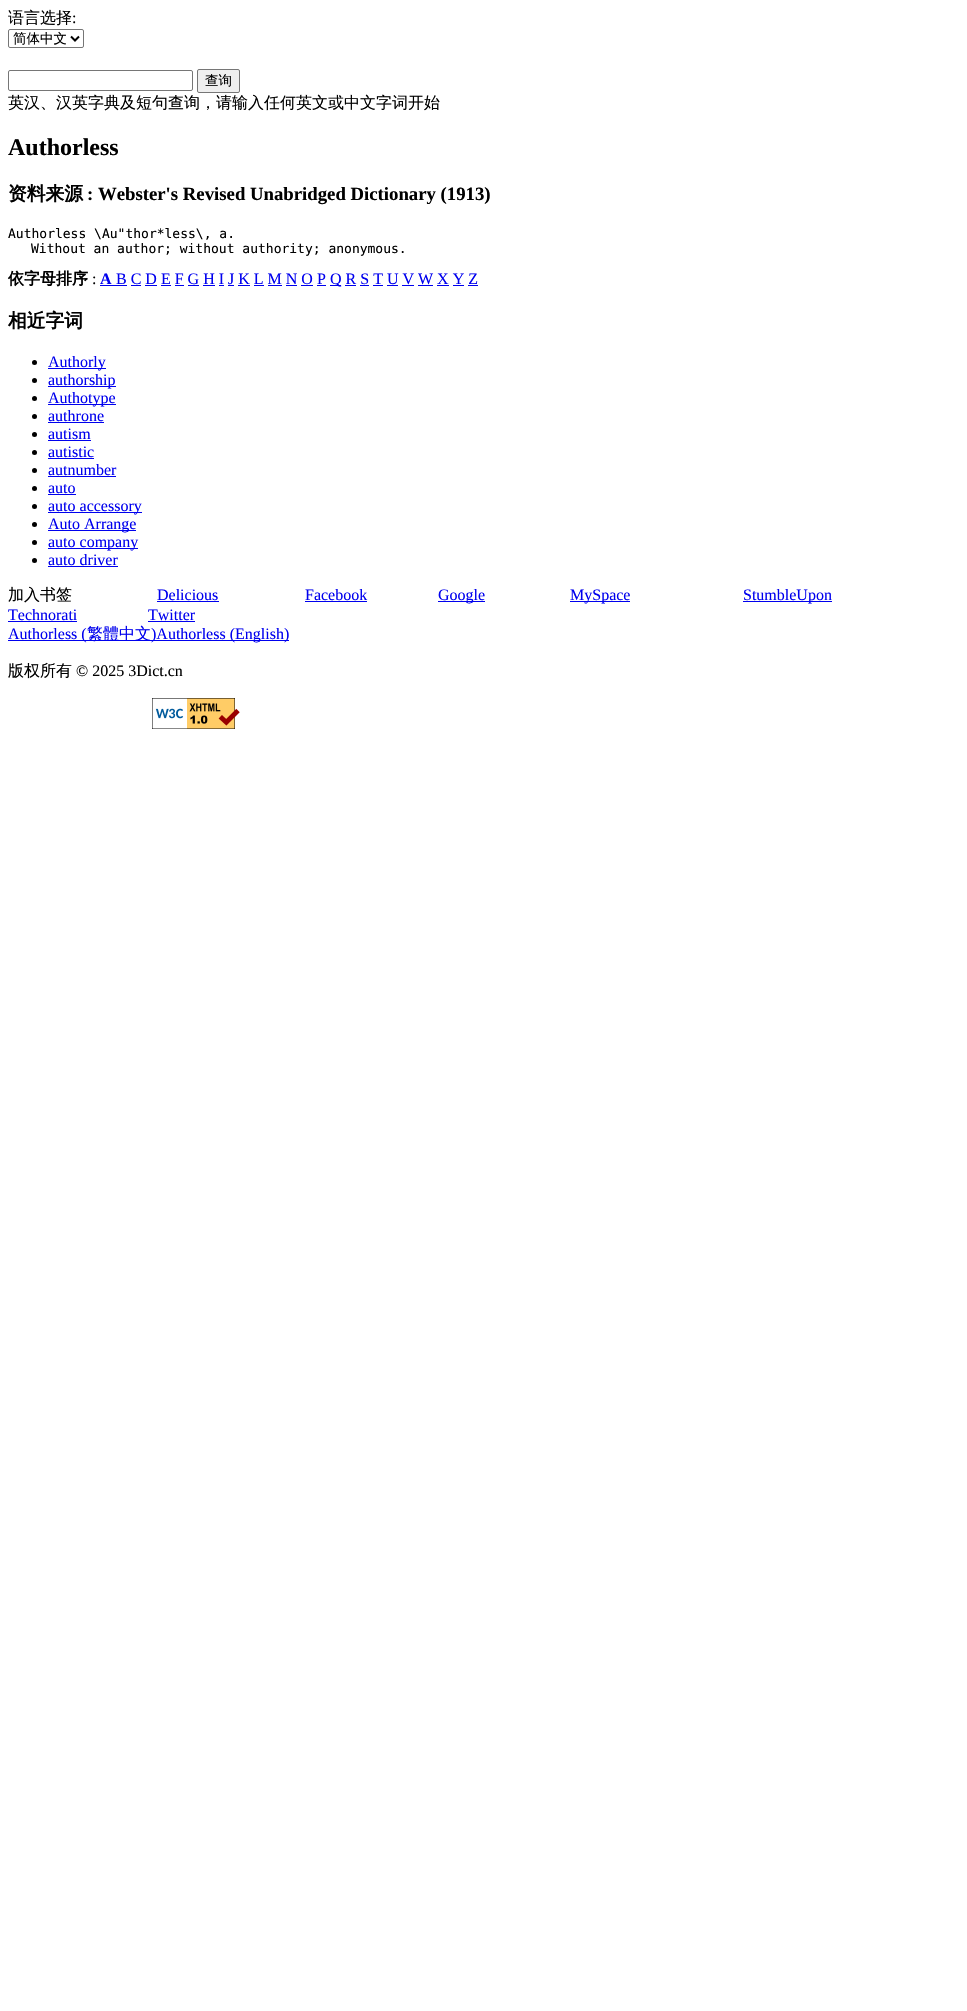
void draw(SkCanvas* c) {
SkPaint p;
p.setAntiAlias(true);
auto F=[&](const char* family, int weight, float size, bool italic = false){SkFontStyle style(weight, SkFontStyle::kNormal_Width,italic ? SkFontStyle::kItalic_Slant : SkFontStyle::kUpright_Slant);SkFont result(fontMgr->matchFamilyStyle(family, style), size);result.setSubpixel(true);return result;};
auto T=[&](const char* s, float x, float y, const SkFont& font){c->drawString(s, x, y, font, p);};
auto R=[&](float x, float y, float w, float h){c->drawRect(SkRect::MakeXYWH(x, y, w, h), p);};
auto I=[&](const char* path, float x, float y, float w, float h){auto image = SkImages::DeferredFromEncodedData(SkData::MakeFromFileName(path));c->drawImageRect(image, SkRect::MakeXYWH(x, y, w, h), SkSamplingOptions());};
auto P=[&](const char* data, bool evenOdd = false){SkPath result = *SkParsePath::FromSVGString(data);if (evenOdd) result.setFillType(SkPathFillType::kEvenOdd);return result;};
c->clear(0xffffffff);
auto f1 = F("WenQuanYi Zen Hei",500,16);
p.setColor(0xff000000);
T("语言选择",8,23,f1);
auto f2 = F("Liberation Serif",400,16);
T(":",72,23,f2);
p.setStroke(true);
p.setStrokeWidth(1);
p.setColor(0xff767676);
c->drawRoundRect(SkRect::MakeXYWH(8.5,29.5,75,18),1.5,1.5,p);
p.setStrokeWidth(2);
p.setColor(0xff000000);
c->drawPath(P("M71 36.5l4 4l4-4"),p);
auto f3 = F("WenQuanYi Zen Hei",500,13.5);
p.setStroke(false);
T("简体中文",13,43,f3);
p.setStroke(true);
p.setStrokeWidth(1);
p.setColor(0xff767676);
c->drawRoundRect(SkRect::MakeXYWH(8.5,70.5,184,20),1.5,1.5,p);
p.setStroke(false);
p.setColor(0xffefefef);
c->drawRoundRect(SkRect::MakeXYWH(197.5,69.5,42,23),1.5,1.5,p);
p.setStroke(true);
p.setColor(0xff767676);
c->drawRoundRect(SkRect::MakeXYWH(197.5,69.5,42,23),1.5,1.5,p);
p.setStroke(false);
p.setColor(0xff000000);
T("查询",205,85,f3);
T("英汉、汉英字典及短句查询，请输入任何英文或中文字词开始",8,108,f1);
auto f4 = F("Liberation Serif",700,24);
T("Authorless",8,155,f4);
auto f5 = F("WenQuanYi Zen Hei",700,18.75);
T("资料来源",8,200,f5);
auto f6 = F("Liberation Serif",700,18.75);
T(": Webster's Revised Unabridged Dictionary (1913)",87,200,f6);
auto f7 = F("DejaVu Sans Mono",400,13);
T("Authorless \\Au\"thor*less\\, a.",8,238,f7);
T("Without an author; without authority; anonymous.",31,253,f7);
auto f8 = F("WenQuanYi Zen Hei",700,16);
T("依字母排序",8,284,f8);
T(":",92,284,f2);
auto f9 = F("Liberation Serif",700,16);
p.setColor(0xff0000ee);
T("A",100,284,f9);
R(100,285,27,1);
T("B C D E F G H I J K L M N O P",116,284,f2);
R(330,285,11,1);
T("Q R S T U V W X Y Z",330,284,f2);
R(131,285,10,1);
R(145,285,12,1);
R(161,285,10,1);
R(175,285,9,1);
R(188,285,11,1);
R(203,285,12,1);
R(219,285,5,1);
R(228,285,6,1);
R(238,285,12,1);
R(254,285,10,1);
R(268,285,14,1);
R(286,285,11,1);
R(301,285,12,1);
R(317,285,9,1);
R(345,285,11,1);
R(360,285,9,1);
R(373,285,10,1);
R(387,285,11,1);
R(402,285,12,1);
R(418,285,15,1);
R(437,285,12,1);
R(453,285,11,1);
R(468,285,10,1);
p.setColor(0xff000000);
T("相近字词",8,327,f5);
c->drawCircle(34.5,362.5,2.5,p);
p.setColor(0xff0000ee);
R(48,368,58,1);
T("Authorly",48,367,f2);
p.setColor(0xff000000);
c->drawCircle(34.5,380.5,2.5,p);
p.setColor(0xff0000ee);
R(48,386,68,1);
T("authorship",48,385,f2);
p.setColor(0xff000000);
c->drawCircle(34.5,398.5,2.5,p);
p.setColor(0xff0000ee);
R(48,404,68,1);
T("Authotype",48,403,f2);
p.setColor(0xff000000);
c->drawCircle(34.5,416.5,2.5,p);
p.setColor(0xff0000ee);
T("authrone",48,421,f2);
R(48,422,56,1);
p.setColor(0xff000000);
c->drawCircle(34.5,434.5,2.5,p);
p.setColor(0xff0000ee);
T("autism",48,439,f2);
R(48,440,43,1);
p.setColor(0xff000000);
c->drawCircle(34.5,452.5,2.5,p);
p.setColor(0xff0000ee);
T("autistic",48,457,f2);
R(48,458,46,1);
p.setColor(0xff000000);
c->drawCircle(34.5,470.5,2.5,p);
p.setColor(0xff0000ee);
T("autnumber",48,475,f2);
R(48,476,68,1);
p.setColor(0xff000000);
c->drawCircle(34.5,488.5,2.5,p);
p.setColor(0xff0000ee);
T("auto",48,493,f2);
R(48,494,28,1);
p.setColor(0xff000000);
c->drawCircle(34.5,506.5,2.5,p);
p.setColor(0xff0000ee);
R(48,512,94,1);
T("auto accessory",48,511,f2);
p.setColor(0xff000000);
c->drawCircle(34.5,524.5,2.5,p);
p.setColor(0xff0000ee);
R(48,530,88,1);
T("Auto Arrange",48,529,f2);
p.setColor(0xff000000);
c->drawCircle(34.5,542.5,2.5,p);
p.setColor(0xff0000ee);
R(48,548,90,1);
T("auto company",48,547,f2);
p.setColor(0xff000000);
c->drawCircle(34.5,560.5,2.5,p);
p.setColor(0xff0000ee);
T("auto driver",48,565,f2);
R(48,566,70,1);
p.setColor(0xff000000);
T("加入书签",8,600,f1);
p.setColor(0xff0000ee);
T("Delicious",157,600,f2);
R(157,601,62,1);
T("Facebook",305,600,f2);
R(305,601,62,1);
R(438,601,47,1);
T("Google",438,600,f2);
R(570,601,60,1);
T("MySpace",570,600,f2);
R(743,601,89,1);
T("StumbleUpon",743,600,f2);
T("Technorati",8,620,f2);
R(8,621,69,1);
T("Twitter",148,620,f2);
R(148,621,47,1);
R(8,640,281,1);
T("Authorless (",8,639,f2);
T("繁體中文",87,639,f1);
T(")Authorless (English)",151,639,f2);
p.setColor(0xff000000);
T("版权所有",8,676,f1);
T("© 2025 3Dict.cn",76,676,f2);
I("1.png",152,698,88,31);
}
